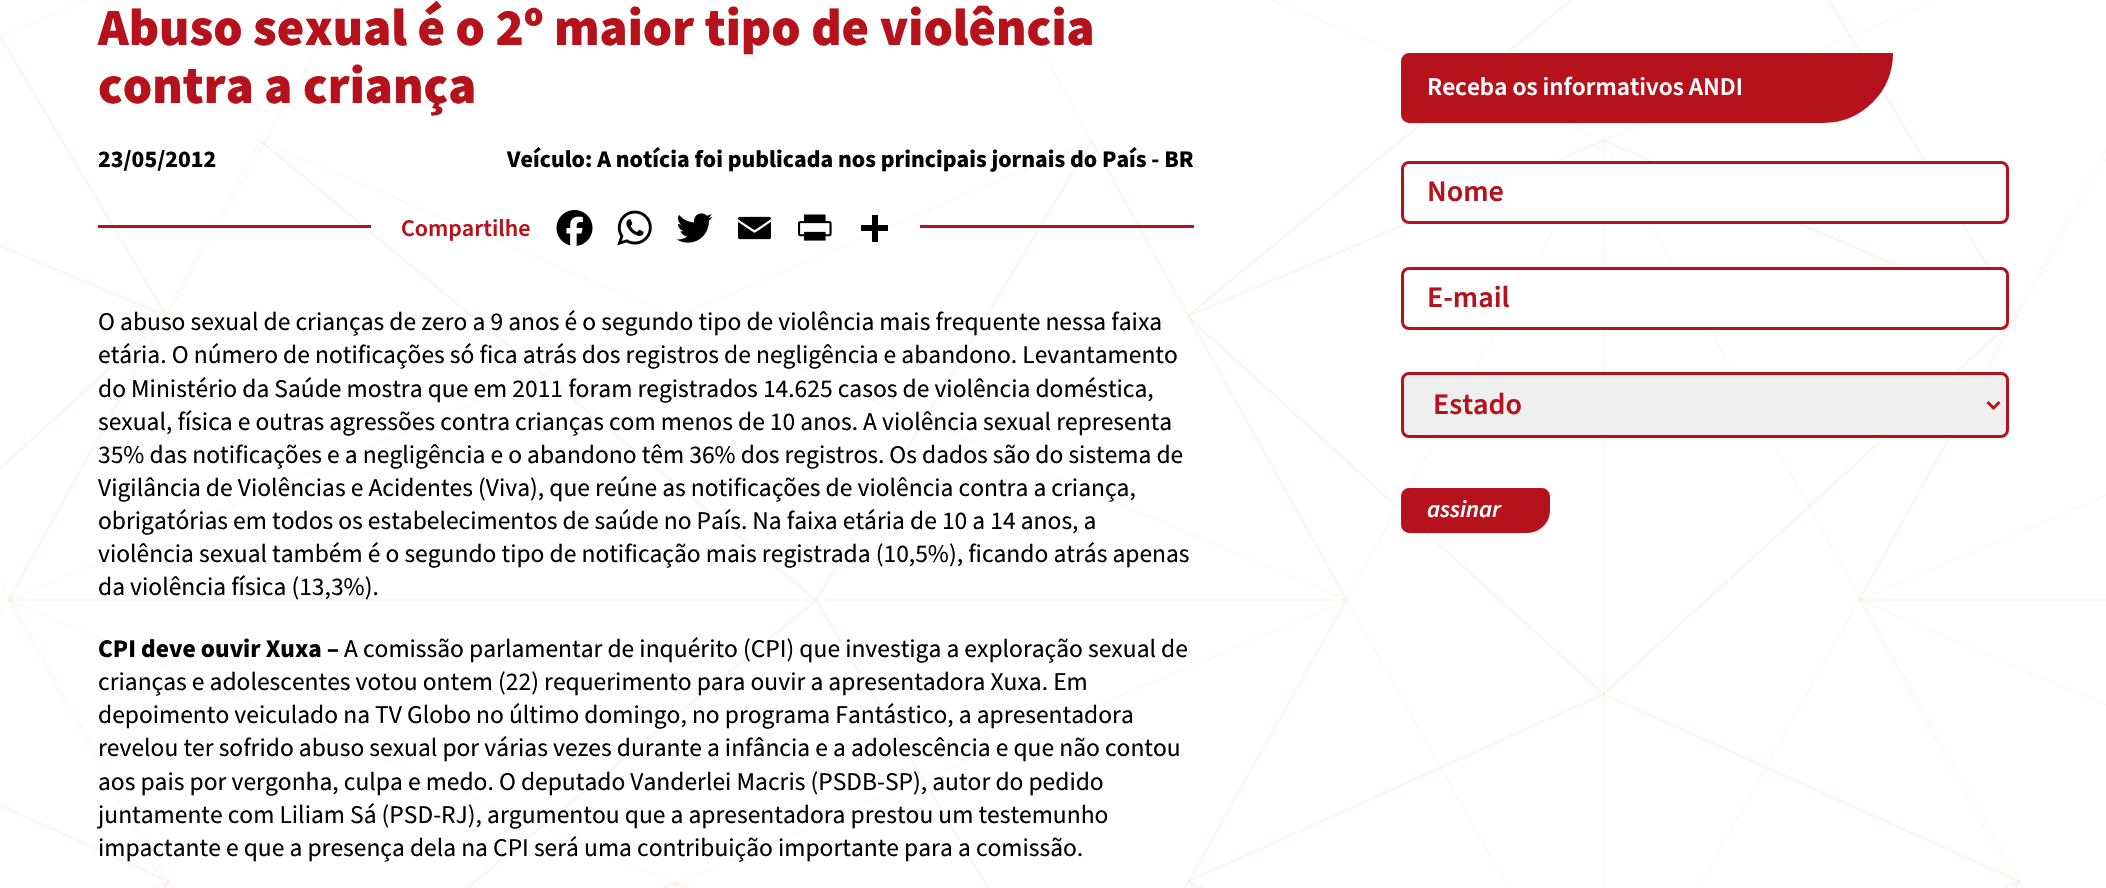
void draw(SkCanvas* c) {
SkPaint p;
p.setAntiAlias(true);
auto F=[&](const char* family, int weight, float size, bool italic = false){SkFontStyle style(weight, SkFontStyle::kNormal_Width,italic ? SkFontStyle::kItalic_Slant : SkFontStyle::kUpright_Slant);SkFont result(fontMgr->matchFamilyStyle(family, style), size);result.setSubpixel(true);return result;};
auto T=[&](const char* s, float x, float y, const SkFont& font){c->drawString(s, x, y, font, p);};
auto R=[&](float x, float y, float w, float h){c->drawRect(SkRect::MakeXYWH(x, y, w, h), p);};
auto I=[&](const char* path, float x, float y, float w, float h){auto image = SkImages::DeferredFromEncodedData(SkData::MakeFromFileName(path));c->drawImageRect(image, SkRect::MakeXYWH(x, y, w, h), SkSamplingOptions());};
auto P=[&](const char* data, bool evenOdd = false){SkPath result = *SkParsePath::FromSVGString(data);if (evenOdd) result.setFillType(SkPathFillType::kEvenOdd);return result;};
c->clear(0xffffffff);
I("1.png",0,0,2106,888);
auto f1 = F("Source Sans Pro",900,52.5);
p.setColor(0xffb5121b);
T("Abuso sexual é o 2º maior tipo de violência",98,45,f1);
T("contra a criança",98,103,f1);
auto f2 = F("Source Sans Pro",700,24);
p.setColor(0xff000000);
T("23/05/2012",98,167,f2);
T("Veículo: A notícia foi publicada nos principais jornais do País - BR",507,167,f2);
p.setColor(0xffb5121b);
R(98,225,273,3);
auto f3 = F("Source Sans Pro",600,24);
T("Compartilhe",401,236,f3);
I("2.png",556,210,37,36);
I("3.png",617,210,35,36);
I("4.png",676,213,37,30);
I("5.png",738,216,33,24);
I("6.png",798,214,34,27);
p.setColor(0xff000000);
R(872,215,6,27);
R(861,225,27,6);
p.setColor(0xffb5121b);
R(920,225,274,3);
auto f4 = F("Source Sans Pro",400,25.5);
p.setColor(0xff000000);
T("O abuso sexual de crianças de zero a 9 anos é o segundo tipo de violência mais frequente nessa faixa",98,330,f4);
T("etária. O número de notificações só fica atrás dos registros de negligência e abandono. Levantamento",98,363,f4);
T("do Ministério da Saúde mostra que em 2011 foram registrados 14.625 casos de violência doméstica,",98,397,f4);
T("sexual, física e outras agressões contra crianças com menos de 10 anos. A violência sexual representa",98,430,f4);
T("35% das notificações e a negligência e o abandono têm 36% dos registros. Os dados são do sistema de",98,463,f4);
T("Vigilância de Violências e Acidentes (Viva), que reúne as notificações de violência contra a criança,",98,496,f4);
T("obrigatórias em todos os estabelecimentos de saúde no País. Na faixa etária de 10 a 14 anos, a",98,529,f4);
T("violência sexual também é o segundo tipo de notificação mais registrada (10,5%), ficando atrás apenas",98,562,f4);
T("da violência física (13,3%).",98,595,f4);
auto f5 = F("Source Sans Pro",700,25.5);
T("CPI deve ouvir Xuxa –",98,657,f5);
T("A comissão parlamentar de inquérito (CPI) que investiga a exploração sexual de",344,657,f4);
T("crianças e adolescentes votou ontem (22) requerimento para ouvir a apresentadora Xuxa. Em",98,690,f4);
T("depoimento veiculado na TV Globo no último domingo, no programa Fantástico, a apresentadora",98,723,f4);
T("revelou ter sofrido abuso sexual por várias vezes durante a infância e a adolescência e que não contou",98,756,f4);
T("aos pais por vergonha, culpa e medo. O deputado Vanderlei Macris (PSDB-SP), autor do pedido",98,790,f4);
T("juntamente com Liliam Sá (PSD-RJ), argumentou que a apresentadora prestou um testemunho",98,823,f4);
T("impactante e que a presença dela na CPI será uma contribuição importante para a comissão.",98,856,f4);
p.setColor(0xffb5121b);
c->drawPath(P("M1409 54.5h482.5v-1.5c0 38-30.5 68.5-68.5 68.5h-414c-3.5 0-6.5-3-6.5-6.5v-54c0-3.5 3-6.5 6.5-6.5z"),p);
p.setStroke(true);
p.setStrokeWidth(3);
c->drawPath(P("M1409 54.5h482.5v-1.5c0 38-30.5 68.5-68.5 68.5h-414c-3.5 0-6.5-3-6.5-6.5v-54c0-3.5 3-6.5 6.5-6.5z"),p);
auto f6 = F("Source Sans Pro",600,25.5);
p.setStroke(false);
p.setColor(0xffffffff);
T("Receba os informativos ANDI",1427,95,f6);
c->drawRoundRect(SkRect::MakeXYWH(1402.5,162.5,605,60),6.5,6.5,p);
p.setStroke(true);
p.setColor(0xffb5121b);
c->drawRoundRect(SkRect::MakeXYWH(1402.5,162.5,605,60),6.5,6.5,p);
auto f7 = F("Source Sans Pro",600,30);
p.setStroke(false);
T("Nome",1427,201,f7);
p.setColor(0xffffffff);
c->drawRoundRect(SkRect::MakeXYWH(1402.5,268.5,605,60),6.5,6.5,p);
p.setStroke(true);
p.setColor(0xffb5121b);
c->drawRoundRect(SkRect::MakeXYWH(1402.5,268.5,605,60),6.5,6.5,p);
p.setStroke(false);
T("E-mail",1427,307,f7);
p.setColor(0xffefefef);
c->drawRoundRect(SkRect::MakeXYWH(1402.5,373.5,605,63),6.5,6.5,p);
p.setStroke(true);
p.setColor(0xffb5121b);
c->drawRoundRect(SkRect::MakeXYWH(1402.5,373.5,605,63),6.5,6.5,p);
c->drawPath(P("M1987.5 402l6 6l6-6"),p);
p.setStroke(false);
T("Estado",1433,414,f7);
c->drawPath(P("M1409 489.5h133c3.5 0 6.5 3 6.5 6.5v14.5c0 11.5-9.5 21-21 21h-118.5c-3.5 0-6.5-3-6.5-6.5v-29c0-3.5 3-6.5 6.5-6.5z"),p);
p.setStroke(true);
c->drawPath(P("M1409 489.5h133c3.5 0 6.5 3 6.5 6.5v14.5c0 11.5-9.5 21-21 21h-118.5c-3.5 0-6.5-3-6.5-6.5v-29c0-3.5 3-6.5 6.5-6.5z"),p);
auto f8 = F("Source Sans Pro",600,24,true);
p.setStroke(false);
p.setColor(0xffffffff);
T("assinar",1427,517,f8);
}
